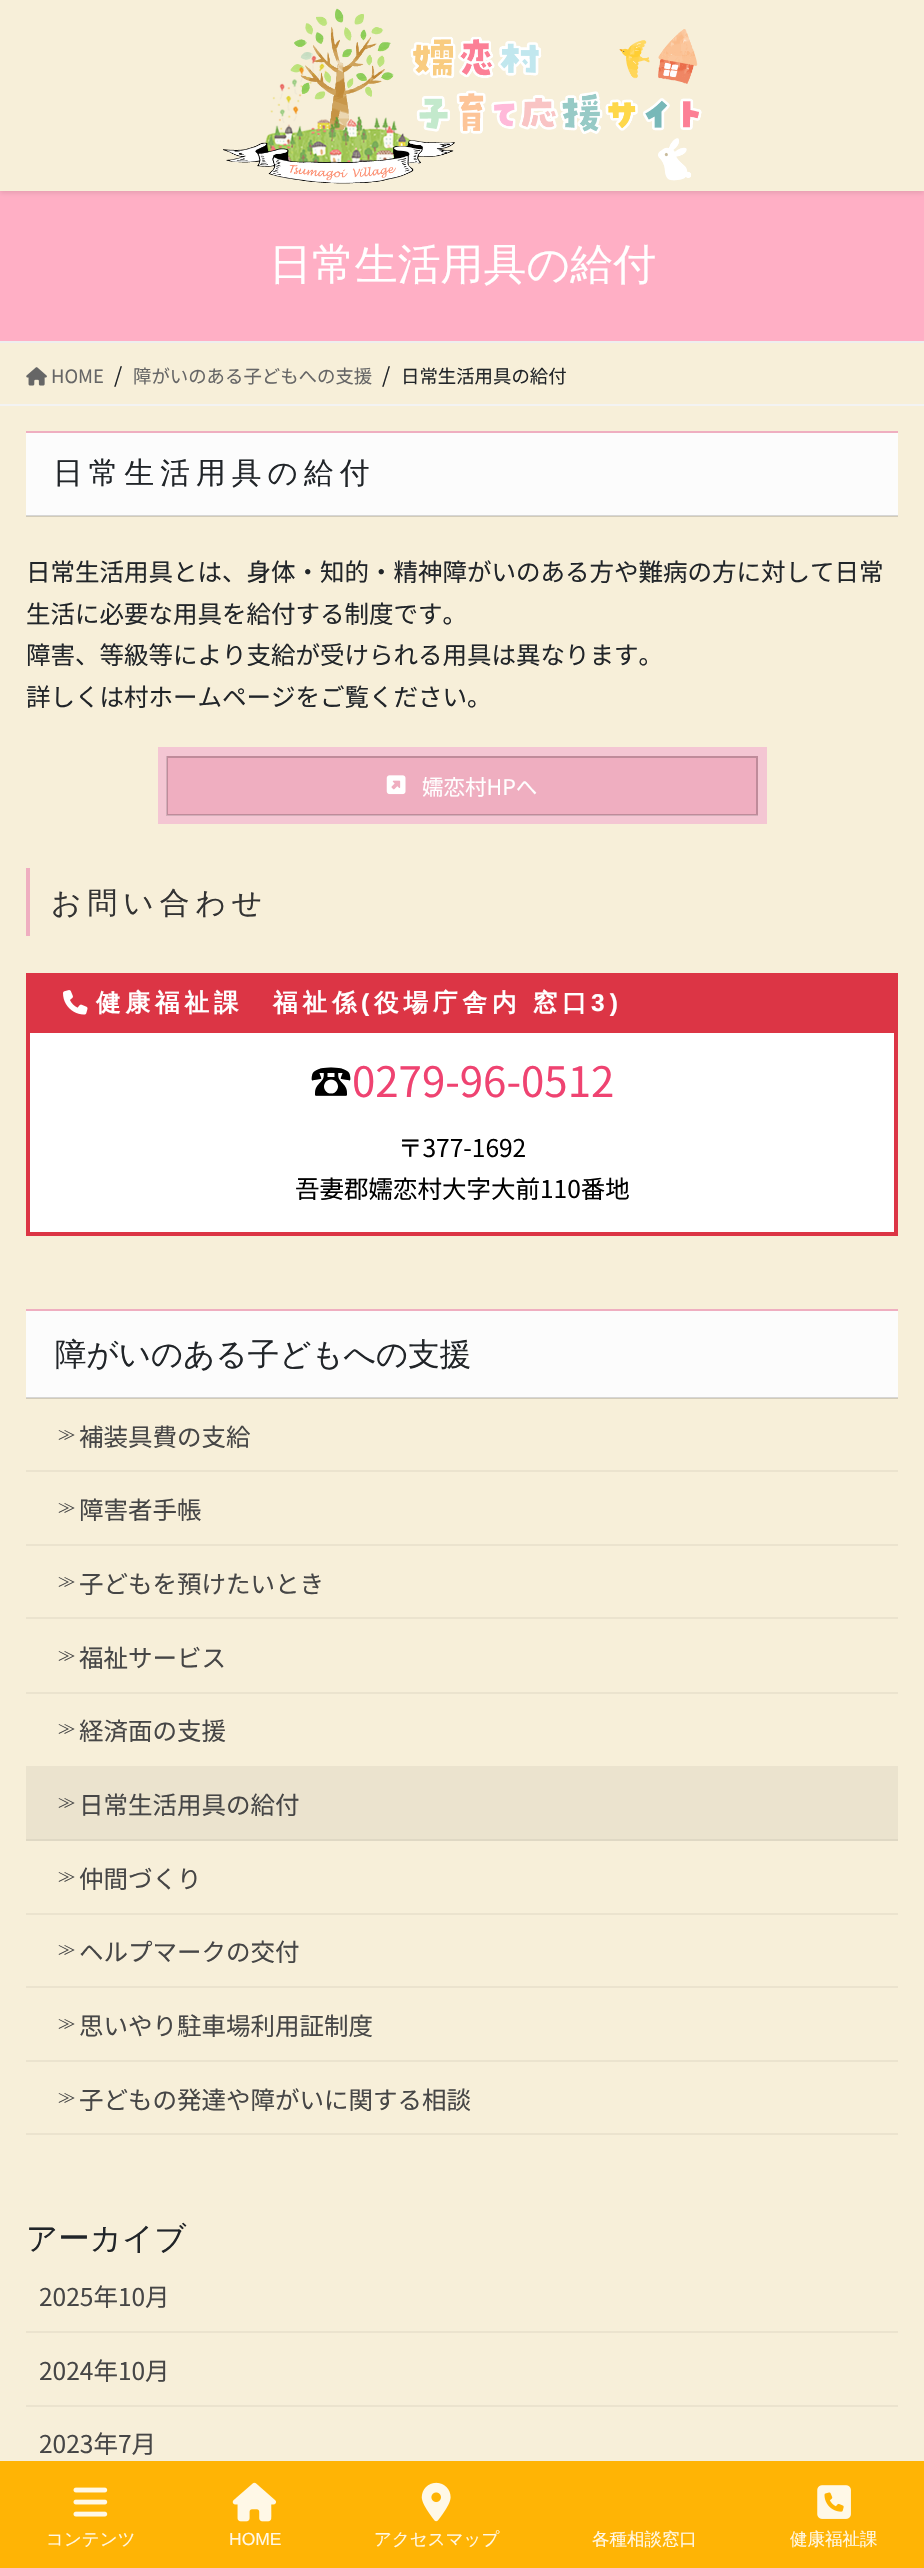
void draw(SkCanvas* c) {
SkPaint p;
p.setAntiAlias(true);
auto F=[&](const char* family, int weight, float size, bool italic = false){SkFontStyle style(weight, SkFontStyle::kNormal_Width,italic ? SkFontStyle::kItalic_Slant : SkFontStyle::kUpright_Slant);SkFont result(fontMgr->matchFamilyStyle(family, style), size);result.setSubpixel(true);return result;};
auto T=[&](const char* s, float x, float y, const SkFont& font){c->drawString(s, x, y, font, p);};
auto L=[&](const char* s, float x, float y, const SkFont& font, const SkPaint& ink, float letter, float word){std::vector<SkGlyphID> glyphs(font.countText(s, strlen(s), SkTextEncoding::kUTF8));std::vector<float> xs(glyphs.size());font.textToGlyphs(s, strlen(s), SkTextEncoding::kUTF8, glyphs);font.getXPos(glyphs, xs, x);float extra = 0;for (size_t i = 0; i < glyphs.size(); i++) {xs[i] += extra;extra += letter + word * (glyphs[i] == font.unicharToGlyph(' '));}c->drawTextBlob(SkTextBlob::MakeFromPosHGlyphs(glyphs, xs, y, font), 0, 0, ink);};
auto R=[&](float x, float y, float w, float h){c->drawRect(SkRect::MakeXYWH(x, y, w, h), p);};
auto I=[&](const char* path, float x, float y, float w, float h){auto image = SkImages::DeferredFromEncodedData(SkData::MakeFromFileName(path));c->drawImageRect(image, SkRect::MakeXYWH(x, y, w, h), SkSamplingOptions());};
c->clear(0xfff7efd9);
p.setColor(0xffd2cbb8);
R(26,1398,872,1);
R(26,516,872,1);
p.setColor(0xffffafc5);
R(0,191,924,150);
p.setColor(0x1a000000);
p.setMaskFilter(SkMaskFilter::MakeBlur(kNormal_SkBlurStyle, 2.5));
c->drawRect(SkRect::MakeXYWH(0,2,924,191),p);
p.setMaskFilter(nullptr);
p.setColor(0xfff7efd9);
R(0,0,924,191);
I("1.png",223,8,479,176);
p.setColor(0xffeeeeee);
R(0,341,924,2);
auto f1 = F("WenQuanYi Zen Hei",500,42.9);
p.setColor(0xffffffff);
T("日常生活用具の給付",269,279,f1);
p.setColor(0xfff3f3f3);
R(0,404,924,2);
I("2.png",26,367,21,19);
auto f2 = F("Noto Sans JP",400,18.4);
p.setColor(0xff666666);
T("HOME",51,383,f2);
auto f3 = F("Noto Sans JP",400,21);
p.setColor(0xff212529);
T("/",114,383,f3);
p.setColor(0xff666666);
T("障がいのある子どもへの支援",133,383,f2);
p.setColor(0xff212529);
T("/",382,383,f3);
T("日常生活用具の給付",401,383,f2);
p.setColor(0xfffcfcfc);
R(26,433,872,82);
p.setColor(0xffd6d6d6);
R(26,515,872,1);
p.setColor(0xffefaec0);
R(26,431,872,2);
auto f4 = F("WenQuanYi Zen Hei",500,29.75);
p.setColor(0xff212529);
L("日常生活用具の給付",53,483,f4,p,6,0);
auto f5 = F("Noto Sans JP",400,24.5);
T("日常生活用具とは、身体・知的・精神障がいのある方や難病の方に対して日常",26,581,f5);
T("生活に必要な用具を給付する制度です。",26,623,f5);
T("障害、等級等により支給が受けられる用具は異なります。",26,664,f5);
T("詳しくは村ホームページをご覧ください。",26,706,f5);
p.setColor(0xffefaec0);
R(158,747,609,77);
p.setStroke(true);
p.setStrokeWidth(2);
p.setColor(0xffbf8b9a);
c->drawRect(SkRect::MakeXYWH(167,757,590,58),p);
p.setStrokeWidth(9);
p.setColor(0x4dffffff);
c->drawRect(SkRect::MakeXYWH(162.5,751.5,600,68),p);
I("3.png",386,775,20,20);
auto f6 = F("Noto Sans JP",400,21.5);
p.setStroke(false);
p.setColor(0xffffffff);
T("嬬恋村HPへ",422,795,f6);
p.setColor(0xffefaec0);
R(26,868,4,68);
p.setColor(0xff333333);
L("お問い合わせ",51,913,f4,p,6,0);
p.setColor(0xffdc3545);
R(26,973,872,56);
I("4.png",63,990,25,25);
auto f7 = F("WenQuanYi Zen Hei",700,24.5);
p.setColor(0xffffffff);
L("健康福祉課　福祉係",96,1011,f7,p,5,0);
auto f8 = F("Liberation Sans",700,24.5);
L("(",361,1011,f8,p,5,0);
L("役場庁舎内 窓口",374,1011,f7,p,5,-1);
L("3)",591,1011,f8,p,5,0);
c->drawRect(SkRect::MakeXYWH(28,1031,868,203),p);
p.setStroke(true);
p.setStrokeWidth(4);
p.setColor(0xffdc3545);
c->drawRect(SkRect::MakeXYWH(28,1031,868,203),p);
auto f9 = F("Noto Sans JP",400,42);
p.setStroke(false);
p.setColor(0xff000000);
T("☎",310,1097,f9);
p.setColor(0xffef4371);
T("0279-96-0512",352,1097,f9);
p.setColor(0xff000000);
T("〒377-1692",398,1157,f5);
T("吾妻郡嬬恋村大字大前110番地",295,1198,f5);
p.setColor(0xfffcfcfc);
R(26,1311,872,86);
p.setColor(0xffd6d6d6);
R(26,1397,872,1);
p.setColor(0xffefaec0);
R(26,1309,872,2);
auto f10 = F("WenQuanYi Zen Hei",500,31.5);
p.setColor(0xff212529);
T("障がいのある子どもへの支援",55,1365,f10);
p.setColor(0xffebe3ce);
R(26,1470,872,2);
auto f11 = F("WenQuanYi Zen Hei",500,17.5);
p.setColor(0xff464646);
T("≫",58,1440,f11);
T("補装具費の支給",79,1446,f5);
p.setColor(0xffebe3ce);
R(26,1544,872,2);
p.setColor(0xff464646);
T("≫",58,1513,f11);
T("障害者手帳",79,1519,f5);
p.setColor(0xffebe3ce);
R(26,1617,872,2);
p.setColor(0xff464646);
T("≫",58,1587,f11);
T("子どもを預けたいとき",79,1593,f5);
p.setColor(0xffebe3ce);
R(26,1692,872,2);
p.setColor(0xff464646);
T("≫",58,1661,f11);
T("福祉サービス",79,1667,f5);
p.setColor(0xffebe3ce);
R(26,1766,872,73);
p.setColor(0xff464646);
T("≫",58,1734,f11);
T("経済面の支援",79,1740,f5);
p.setColor(0xffdfd8c4);
R(26,1839,872,2);
p.setColor(0xff464646);
T("≫",58,1808,f11);
T("日常生活用具の給付",79,1814,f5);
p.setColor(0xffebe3ce);
R(26,1913,872,2);
p.setColor(0xff464646);
T("≫",58,1882,f11);
T("仲間づくり",79,1888,f5);
p.setColor(0xffebe3ce);
R(26,1986,872,2);
p.setColor(0xff464646);
T("≫",58,1955,f11);
T("ヘルプマークの交付",79,1961,f5);
p.setColor(0xffebe3ce);
R(26,2060,872,2);
p.setColor(0xff464646);
T("≫",58,2029,f11);
T("思いやり駐車場利用証制度",79,2035,f5);
p.setColor(0xffebe3ce);
R(26,2133,872,2);
p.setColor(0xff464646);
T("≫",58,2103,f11);
T("子どもの発達や障がいに関する相談",79,2109,f5);
p.setColor(0xff212529);
T("アーカイブ",26,2249,f10);
p.setColor(0xffebe3ce);
R(26,2331,872,2);
p.setColor(0xff464646);
T("2025年10月",39,2306,f5);
p.setColor(0xffebe3ce);
R(26,2405,872,2);
p.setColor(0xff464646);
T("2024年10月",39,2380,f5);
T("2023年7月",39,2453,f5);
p.setColor(0xffffb405);
R(0,2461,924,107);
I("5.png",73,2487,35,30);
p.setColor(0xfffff8e6);
T("コンテンツ",46,2545,f11);
I("6.png",232,2482,44,40);
auto f12 = F("Liberation Sans",400,17.5);
T("HOME",229,2545,f12);
I("7.png",421,2482,30,40);
T("アクセスマップ",374,2545,f11);
T("各種相談窓口",592,2545,f11);
I("8.png",817,2485,34,34);
T("健康福祉課",790,2545,f11);
}
